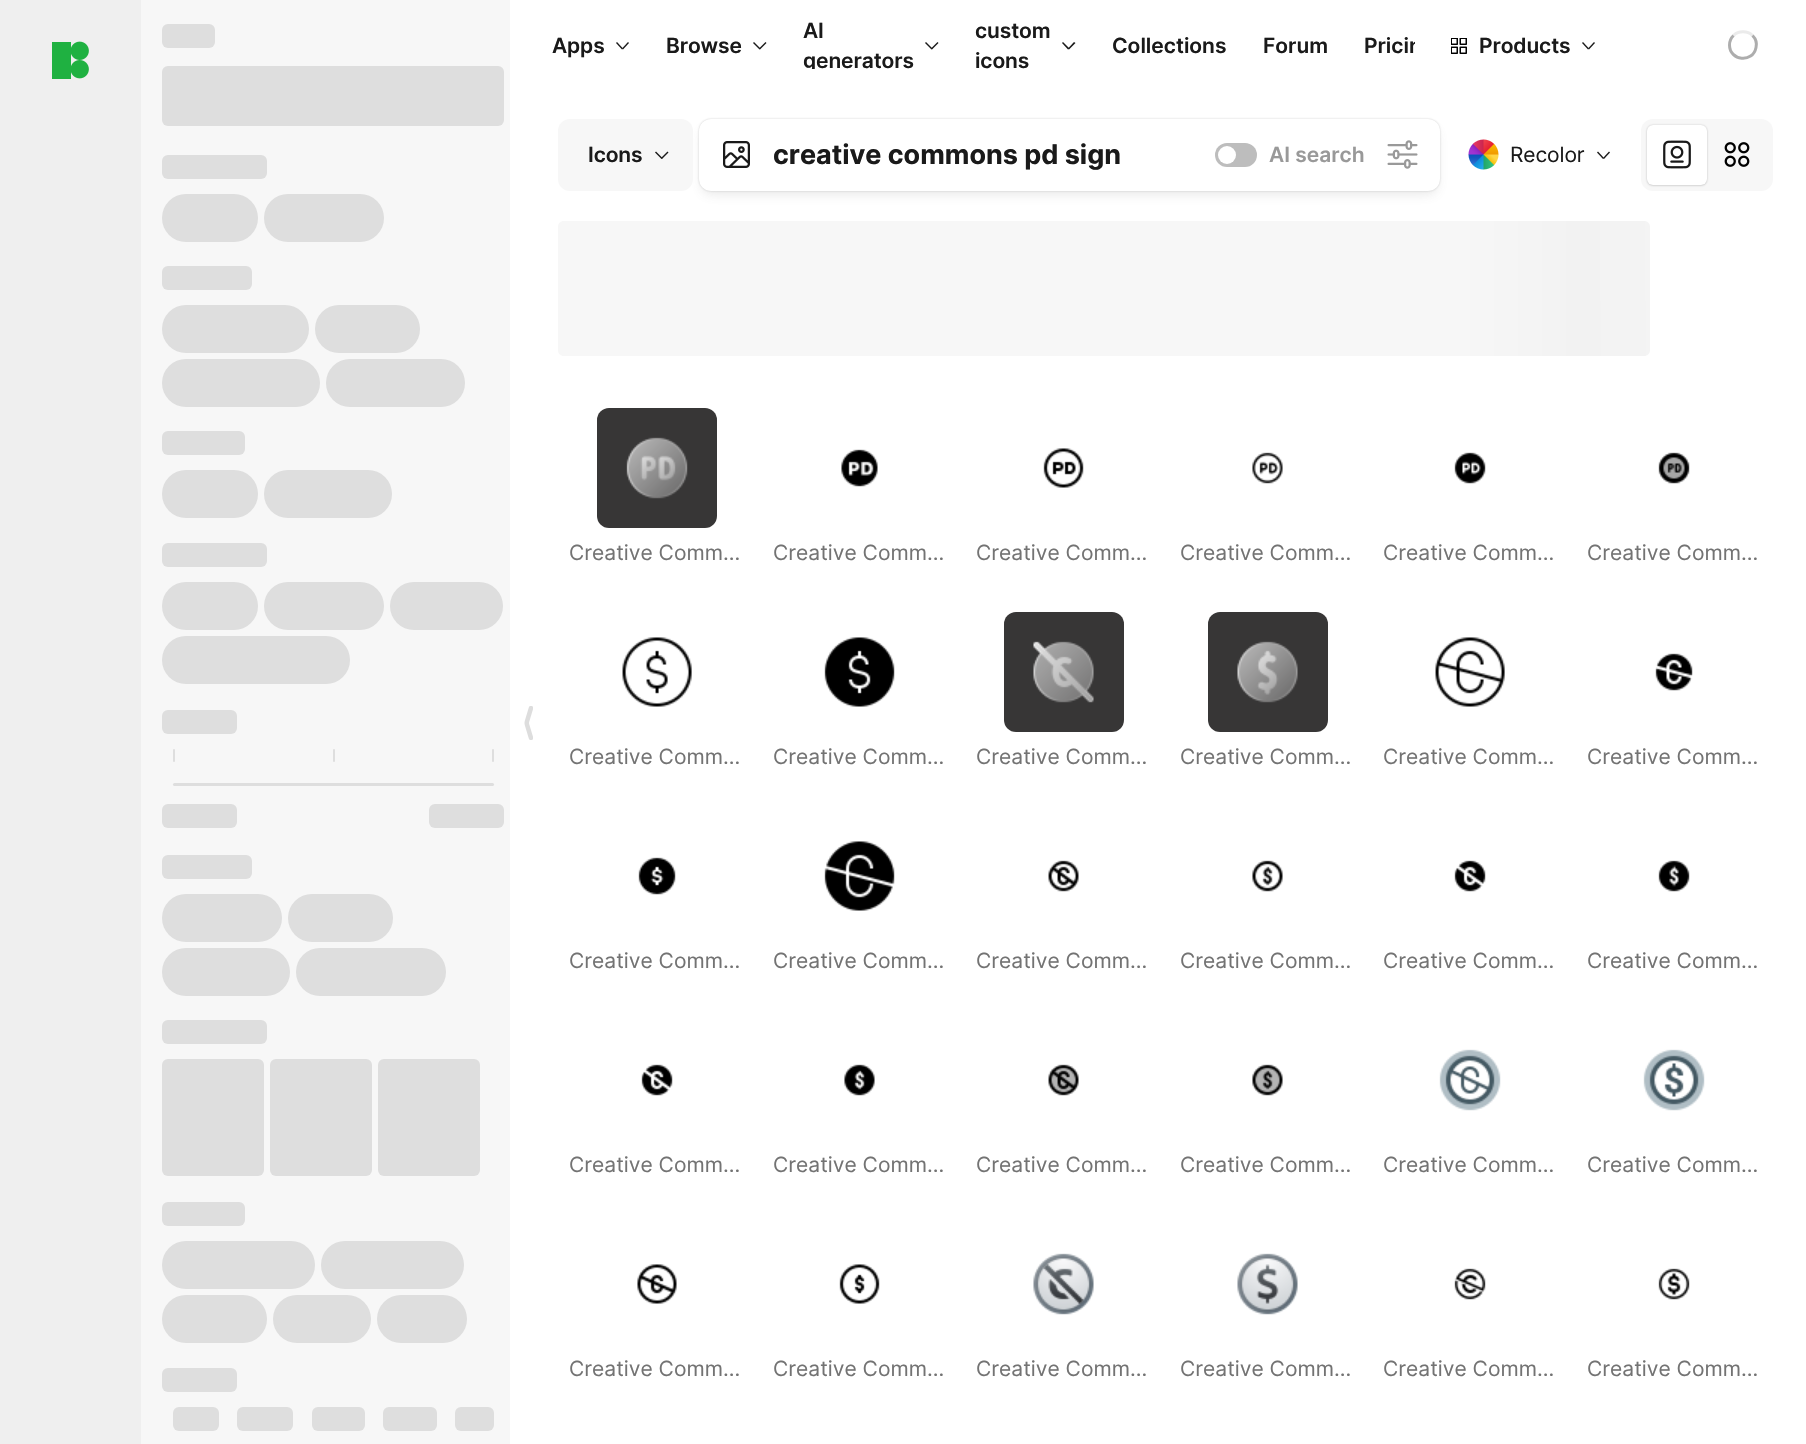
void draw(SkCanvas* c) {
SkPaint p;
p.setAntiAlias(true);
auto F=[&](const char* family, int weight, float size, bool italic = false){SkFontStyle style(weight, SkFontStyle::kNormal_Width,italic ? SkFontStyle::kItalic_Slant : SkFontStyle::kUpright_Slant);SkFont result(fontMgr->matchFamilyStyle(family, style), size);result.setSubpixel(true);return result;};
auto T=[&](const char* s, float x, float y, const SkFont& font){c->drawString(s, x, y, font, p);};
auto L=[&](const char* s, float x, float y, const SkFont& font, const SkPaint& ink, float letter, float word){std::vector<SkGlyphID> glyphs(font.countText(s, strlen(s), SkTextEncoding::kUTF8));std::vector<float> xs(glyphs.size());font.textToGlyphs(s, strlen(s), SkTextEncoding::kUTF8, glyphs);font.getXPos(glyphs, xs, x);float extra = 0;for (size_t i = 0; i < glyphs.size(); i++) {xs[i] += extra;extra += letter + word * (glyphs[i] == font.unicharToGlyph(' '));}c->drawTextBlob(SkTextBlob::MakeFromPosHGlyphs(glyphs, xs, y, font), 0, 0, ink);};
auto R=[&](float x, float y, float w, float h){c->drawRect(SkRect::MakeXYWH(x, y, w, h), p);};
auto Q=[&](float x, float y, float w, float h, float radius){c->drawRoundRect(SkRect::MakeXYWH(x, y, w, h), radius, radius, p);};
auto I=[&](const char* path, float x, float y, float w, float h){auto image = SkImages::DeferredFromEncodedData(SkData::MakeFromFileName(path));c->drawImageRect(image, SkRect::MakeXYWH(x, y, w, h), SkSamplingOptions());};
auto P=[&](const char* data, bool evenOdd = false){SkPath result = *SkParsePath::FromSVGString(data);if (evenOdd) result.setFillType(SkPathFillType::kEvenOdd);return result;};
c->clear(0xffffffff);
p.setColor(0xffefefef);
R(0,0,141,1444);
I("1.png",52,41,37,38);
p.setColor(0xfff7f7f7);
R(141,0,369,1444);
{
const SkColor colors[] = {0xffdedede,0xffebebeb,0xffdedede};
const float stops[] = {.1,.18,.33};
const SkPoint ends[] = {{-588,102}, {912,102}};
p.setShader(SkGradientShader::MakeLinear(ends, colors, stops, 3, SkTileMode::kClamp));
p.setAlpha(255);
}
Q(162,24,53,24,6);
{
const SkColor colors[] = {0xffdedede,0xffebebeb,0xffdedede};
const float stops[] = {.1,.18,.33};
const SkPoint ends[] = {{-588,144}, {912,144}};
p.setShader(SkGradientShader::MakeLinear(ends, colors, stops, 3, SkTileMode::kClamp));
p.setAlpha(255);
}
Q(162,66,342,60,6);
{
const SkColor colors[] = {0xffdedede,0xffebebeb,0xffdedede};
const float stops[] = {.1,.18,.33};
const SkPoint ends[] = {{-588,233}, {912,232}};
p.setShader(SkGradientShader::MakeLinear(ends, colors, stops, 3, SkTileMode::kClamp));
p.setAlpha(255);
}
Q(162,155,105,24,6);
{
const SkColor colors[] = {0xffdedede,0xffebebeb,0xffdedede};
const float stops[] = {.1,.18,.33};
const SkPoint ends[] = {{-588,272}, {912,271}};
p.setShader(SkGradientShader::MakeLinear(ends, colors, stops, 3, SkTileMode::kClamp));
p.setAlpha(255);
}
Q(162,194,96,48,24);
{
const SkColor colors[] = {0xffdedede,0xffebebeb,0xffdedede};
const float stops[] = {.1,.18,.33};
const SkPoint ends[] = {{-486,272}, {1014,271}};
p.setShader(SkGradientShader::MakeLinear(ends, colors, stops, 3, SkTileMode::kClamp));
p.setAlpha(255);
}
Q(264,194,120,48,24);
{
const SkColor colors[] = {0xffdedede,0xffebebeb,0xffdedede};
const float stops[] = {.1,.18,.33};
const SkPoint ends[] = {{-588,344}, {912,343}};
p.setShader(SkGradientShader::MakeLinear(ends, colors, stops, 3, SkTileMode::kClamp));
p.setAlpha(255);
}
Q(162,266,90,24,6);
{
const SkColor colors[] = {0xffdedede,0xffebebeb,0xffdedede};
const float stops[] = {.1,.18,.33};
const SkPoint ends[] = {{-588,383}, {912,382}};
p.setShader(SkGradientShader::MakeLinear(ends, colors, stops, 3, SkTileMode::kClamp));
p.setAlpha(255);
}
Q(162,305,147,48,24);
{
const SkColor colors[] = {0xffdedede,0xffebebeb,0xffdedede};
const float stops[] = {.1,.18,.33};
const SkPoint ends[] = {{-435,383}, {1065,382}};
p.setShader(SkGradientShader::MakeLinear(ends, colors, stops, 3, SkTileMode::kClamp));
p.setAlpha(255);
}
Q(315,305,105,48,24);
{
const SkColor colors[] = {0xffdedede,0xffebebeb,0xffdedede};
const float stops[] = {.1,.18,.33};
const SkPoint ends[] = {{-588,437}, {912,436}};
p.setShader(SkGradientShader::MakeLinear(ends, colors, stops, 3, SkTileMode::kClamp));
p.setAlpha(255);
}
Q(162,359,158,48,24);
{
const SkColor colors[] = {0xffdedede,0xffebebeb,0xffdedede};
const float stops[] = {.1,.18,.33};
const SkPoint ends[] = {{-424,437}, {1076,436}};
p.setShader(SkGradientShader::MakeLinear(ends, colors, stops, 3, SkTileMode::kClamp));
p.setAlpha(255);
}
Q(326,359,139,48,24);
{
const SkColor colors[] = {0xffdedede,0xffebebeb,0xffdedede};
const float stops[] = {.1,.18,.33};
const SkPoint ends[] = {{-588,509}, {912,508}};
p.setShader(SkGradientShader::MakeLinear(ends, colors, stops, 3, SkTileMode::kClamp));
p.setAlpha(255);
}
Q(162,431,83,24,6);
{
const SkColor colors[] = {0xffdedede,0xffebebeb,0xffdedede};
const float stops[] = {.1,.18,.33};
const SkPoint ends[] = {{-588,548}, {912,547}};
p.setShader(SkGradientShader::MakeLinear(ends, colors, stops, 3, SkTileMode::kClamp));
p.setAlpha(255);
}
Q(162,470,96,48,24);
{
const SkColor colors[] = {0xffdedede,0xffebebeb,0xffdedede};
const float stops[] = {.1,.18,.33};
const SkPoint ends[] = {{-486,548}, {1014,547}};
p.setShader(SkGradientShader::MakeLinear(ends, colors, stops, 3, SkTileMode::kClamp));
p.setAlpha(255);
}
Q(264,470,128,48,24);
{
const SkColor colors[] = {0xffdedede,0xffebebeb,0xffdedede};
const float stops[] = {.1,.18,.33};
const SkPoint ends[] = {{-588,621}, {912,621}};
p.setShader(SkGradientShader::MakeLinear(ends, colors, stops, 3, SkTileMode::kClamp));
p.setAlpha(255);
}
Q(162,543,105,24,6);
{
const SkColor colors[] = {0xffdedede,0xffebebeb,0xffdedede};
const float stops[] = {.1,.18,.33};
const SkPoint ends[] = {{-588,660}, {912,660}};
p.setShader(SkGradientShader::MakeLinear(ends, colors, stops, 3, SkTileMode::kClamp));
p.setAlpha(255);
}
Q(162,582,96,48,24);
{
const SkColor colors[] = {0xffdedede,0xffebebeb,0xffdedede};
const float stops[] = {.1,.18,.33};
const SkPoint ends[] = {{-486,660}, {1014,660}};
p.setShader(SkGradientShader::MakeLinear(ends, colors, stops, 3, SkTileMode::kClamp));
p.setAlpha(255);
}
Q(264,582,120,48,24);
{
const SkColor colors[] = {0xffdedede,0xffebebeb,0xffdedede};
const float stops[] = {.1,.18,.33};
const SkPoint ends[] = {{-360,660}, {1140,660}};
p.setShader(SkGradientShader::MakeLinear(ends, colors, stops, 3, SkTileMode::kClamp));
p.setAlpha(255);
}
Q(390,582,113,48,24);
{
const SkColor colors[] = {0xffdedede,0xffebebeb,0xffdedede};
const float stops[] = {.1,.18,.33};
const SkPoint ends[] = {{-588,714}, {912,714}};
p.setShader(SkGradientShader::MakeLinear(ends, colors, stops, 3, SkTileMode::kClamp));
p.setAlpha(255);
}
Q(162,636,188,48,24);
{
const SkColor colors[] = {0xffdedede,0xffebebeb,0xffdedede};
const float stops[] = {.1,.18,.33};
const SkPoint ends[] = {{-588,788}, {912,788}};
p.setShader(SkGradientShader::MakeLinear(ends, colors, stops, 3, SkTileMode::kClamp));
p.setAlpha(255);
}
Q(162,710,75,24,6);
{
const SkColor colors[] = {0xffdedede,0xffebebeb,0xffdedede};
const float stops[] = {.1,.18,.33};
const SkPoint ends[] = {{-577,827}, {923,827}};
p.setShader(SkGradientShader::MakeLinear(ends, colors, stops, 3, SkTileMode::kClamp));
p.setAlpha(255);
}
Q(173,749,2,13,1);
{
const SkColor colors[] = {0xffdedede,0xffebebeb,0xffdedede};
const float stops[] = {.1,.18,.33};
const SkPoint ends[] = {{-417,827}, {1083,827}};
p.setShader(SkGradientShader::MakeLinear(ends, colors, stops, 3, SkTileMode::kClamp));
p.setAlpha(255);
}
Q(333,749,2,13,1);
{
const SkColor colors[] = {0xffdedede,0xffebebeb,0xffdedede};
const float stops[] = {.1,.18,.33};
const SkPoint ends[] = {{-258,827}, {1242,827}};
p.setShader(SkGradientShader::MakeLinear(ends, colors, stops, 3, SkTileMode::kClamp));
p.setAlpha(255);
}
Q(492,749,2,13,1);
{
const SkColor colors[] = {0xffdedede,0xffebebeb,0xffdedede};
const float stops[] = {.1,.18,.33};
const SkPoint ends[] = {{-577,861}, {923,861}};
p.setShader(SkGradientShader::MakeLinear(ends, colors, stops, 3, SkTileMode::kClamp));
p.setAlpha(255);
}
Q(173,783,321,3,1.5);
{
const SkColor colors[] = {0xffdedede,0xffebebeb,0xffdedede};
const float stops[] = {.1,.18,.33};
const SkPoint ends[] = {{-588,882}, {912,882}};
p.setShader(SkGradientShader::MakeLinear(ends, colors, stops, 3, SkTileMode::kClamp));
p.setAlpha(255);
}
Q(162,804,75,24,6);
{
const SkColor colors[] = {0xffdedede,0xffebebeb,0xffdedede};
const float stops[] = {.1,.18,.33};
const SkPoint ends[] = {{-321,882}, {1179,882}};
p.setShader(SkGradientShader::MakeLinear(ends, colors, stops, 3, SkTileMode::kClamp));
p.setAlpha(255);
}
Q(429,804,75,24,6);
{
const SkColor colors[] = {0xffdedede,0xffebebeb,0xffdedede};
const float stops[] = {.1,.18,.33};
const SkPoint ends[] = {{-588,933}, {912,933}};
p.setShader(SkGradientShader::MakeLinear(ends, colors, stops, 3, SkTileMode::kClamp));
p.setAlpha(255);
}
Q(162,855,90,24,6);
{
const SkColor colors[] = {0xffdedede,0xffebebeb,0xffdedede};
const float stops[] = {.1,.18,.33};
const SkPoint ends[] = {{-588,972}, {912,972}};
p.setShader(SkGradientShader::MakeLinear(ends, colors, stops, 3, SkTileMode::kClamp));
p.setAlpha(255);
}
Q(162,894,120,48,24);
{
const SkColor colors[] = {0xffdedede,0xffebebeb,0xffdedede};
const float stops[] = {.1,.18,.33};
const SkPoint ends[] = {{-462,972}, {1038,972}};
p.setShader(SkGradientShader::MakeLinear(ends, colors, stops, 3, SkTileMode::kClamp));
p.setAlpha(255);
}
Q(288,894,105,48,24);
{
const SkColor colors[] = {0xffdedede,0xffebebeb,0xffdedede};
const float stops[] = {.1,.18,.33};
const SkPoint ends[] = {{-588,1026}, {912,1026}};
p.setShader(SkGradientShader::MakeLinear(ends, colors, stops, 3, SkTileMode::kClamp));
p.setAlpha(255);
}
Q(162,948,128,48,24);
{
const SkColor colors[] = {0xffdedede,0xffebebeb,0xffdedede};
const float stops[] = {.1,.18,.33};
const SkPoint ends[] = {{-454,1026}, {1046,1026}};
p.setShader(SkGradientShader::MakeLinear(ends, colors, stops, 3, SkTileMode::kClamp));
p.setAlpha(255);
}
Q(296,948,150,48,24);
{
const SkColor colors[] = {0xffdedede,0xffebebeb,0xffdedede};
const float stops[] = {.1,.18,.33};
const SkPoint ends[] = {{-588,1098}, {912,1098}};
p.setShader(SkGradientShader::MakeLinear(ends, colors, stops, 3, SkTileMode::kClamp));
p.setAlpha(255);
}
Q(162,1020,105,24,6);
{
const SkColor colors[] = {0xffdedede,0xffebebeb,0xffdedede};
const float stops[] = {.1,.18,.33};
const SkPoint ends[] = {{-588,1137}, {912,1137}};
p.setShader(SkGradientShader::MakeLinear(ends, colors, stops, 3, SkTileMode::kClamp));
p.setAlpha(255);
}
Q(162,1059,102,117,6);
{
const SkColor colors[] = {0xffdedede,0xffebebeb,0xffdedede};
const float stops[] = {.1,.18,.33};
const SkPoint ends[] = {{-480,1137}, {1020,1137}};
p.setShader(SkGradientShader::MakeLinear(ends, colors, stops, 3, SkTileMode::kClamp));
p.setAlpha(255);
}
Q(270,1059,102,117,6);
{
const SkColor colors[] = {0xffdedede,0xffebebeb,0xffdedede};
const float stops[] = {.1,.18,.33};
const SkPoint ends[] = {{-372,1137}, {1128,1137}};
p.setShader(SkGradientShader::MakeLinear(ends, colors, stops, 3, SkTileMode::kClamp));
p.setAlpha(255);
}
Q(378,1059,102,117,6);
{
const SkColor colors[] = {0xffdedede,0xffebebeb,0xffdedede};
const float stops[] = {.1,.18,.33};
const SkPoint ends[] = {{-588,1280}, {912,1280}};
p.setShader(SkGradientShader::MakeLinear(ends, colors, stops, 3, SkTileMode::kClamp));
p.setAlpha(255);
}
Q(162,1202,83,24,6);
{
const SkColor colors[] = {0xffdedede,0xffebebeb,0xffdedede};
const float stops[] = {.1,.18,.33};
const SkPoint ends[] = {{-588,1319}, {912,1319}};
p.setShader(SkGradientShader::MakeLinear(ends, colors, stops, 3, SkTileMode::kClamp));
p.setAlpha(255);
}
Q(162,1241,153,48,24);
{
const SkColor colors[] = {0xffdedede,0xffebebeb,0xffdedede};
const float stops[] = {.1,.18,.33};
const SkPoint ends[] = {{-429,1319}, {1071,1319}};
p.setShader(SkGradientShader::MakeLinear(ends, colors, stops, 3, SkTileMode::kClamp));
p.setAlpha(255);
}
Q(321,1241,143,48,24);
{
const SkColor colors[] = {0xffdedede,0xffebebeb,0xffdedede};
const float stops[] = {.1,.18,.33};
const SkPoint ends[] = {{-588,1373}, {912,1373}};
p.setShader(SkGradientShader::MakeLinear(ends, colors, stops, 3, SkTileMode::kClamp));
p.setAlpha(255);
}
Q(162,1295,105,48,24);
{
const SkColor colors[] = {0xffdedede,0xffebebeb,0xffdedede};
const float stops[] = {.1,.18,.33};
const SkPoint ends[] = {{-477,1373}, {1023,1373}};
p.setShader(SkGradientShader::MakeLinear(ends, colors, stops, 3, SkTileMode::kClamp));
p.setAlpha(255);
}
Q(273,1295,98,48,24);
{
const SkColor colors[] = {0xffdedede,0xffebebeb,0xffdedede};
const float stops[] = {.1,.18,.33};
const SkPoint ends[] = {{-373,1373}, {1127,1373}};
p.setShader(SkGradientShader::MakeLinear(ends, colors, stops, 3, SkTileMode::kClamp));
p.setAlpha(255);
}
Q(377,1295,90,48,24);
{
const SkColor colors[] = {0xffdedede,0xffebebeb,0xffdedede};
const float stops[] = {.1,.18,.33};
const SkPoint ends[] = {{-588,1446}, {912,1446}};
p.setShader(SkGradientShader::MakeLinear(ends, colors, stops, 3, SkTileMode::kClamp));
p.setAlpha(255);
}
Q(162,1368,75,24,6);
{
const SkColor colors[] = {0xffdedede,0xffebebeb,0xffdedede};
const float stops[] = {.1,.18,.33};
const SkPoint ends[] = {{-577,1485}, {923,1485}};
p.setShader(SkGradientShader::MakeLinear(ends, colors, stops, 3, SkTileMode::kClamp));
p.setAlpha(255);
}
Q(173,1407,46,24,6);
{
const SkColor colors[] = {0xffdedede,0xffebebeb,0xffdedede};
const float stops[] = {.1,.18,.33};
const SkPoint ends[] = {{-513,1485}, {987,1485}};
p.setShader(SkGradientShader::MakeLinear(ends, colors, stops, 3, SkTileMode::kClamp));
p.setAlpha(255);
}
Q(237,1407,56,24,6);
{
const SkColor colors[] = {0xffdedede,0xffebebeb,0xffdedede};
const float stops[] = {.1,.18,.33};
const SkPoint ends[] = {{-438,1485}, {1062,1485}};
p.setShader(SkGradientShader::MakeLinear(ends, colors, stops, 3, SkTileMode::kClamp));
p.setAlpha(255);
}
Q(312,1407,53,24,6);
{
const SkColor colors[] = {0xffdedede,0xffebebeb,0xffdedede};
const float stops[] = {.1,.18,.33};
const SkPoint ends[] = {{-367,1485}, {1133,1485}};
p.setShader(SkGradientShader::MakeLinear(ends, colors, stops, 3, SkTileMode::kClamp));
p.setAlpha(255);
}
Q(383,1407,54,24,6);
{
const SkColor colors[] = {0xffdedede,0xffebebeb,0xffdedede};
const float stops[] = {.1,.18,.33};
const SkPoint ends[] = {{-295,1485}, {1205,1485}};
p.setShader(SkGradientShader::MakeLinear(ends, colors, stops, 3, SkTileMode::kClamp));
p.setAlpha(255);
}
Q(455,1407,39,24,6);
I("2.png",524,706,9,34);
auto f1 = F("Inter",600,21);
p.setShader(nullptr);
p.setColor(0xff1a1a1a);
L("Apps",552,53,f1,p,-.1,0);
c->drawPath(P("M617 42l6 6.5l-1 1l-6-6.5z"),p);
c->drawPath(P("M622 48.5l6-6.5l1 1l-6 6.5z"),p);
L("Browse",666,53,f1,p,-.1,0);
c->drawPath(P("M754 42l6.5 6.5l-1 1l-6.5-6.5z"),p);
c->drawPath(P("M759 48.5l6.5-6.5l1 1l-6.5 6.5z"),p);
L("AI",803,38,f1,p,-.1,0);
c->save();
c->clipRect(SkRect::MakeXYWH(534,21,881,48));
L("generators",803,68,f1,p,-.1,0);
c->restore();
c->drawPath(P("M926 42l6.5 6.5l-1 1l-6.5-6.5z"),p);
c->drawPath(P("M931 48.5l6.5-6.5l1 1l-6.5 6.5z"),p);
L("custom",975,38,f1,p,-.1,0);
L("icons",975,68,f1,p,-.1,0);
c->drawPath(P("M1063 42l6.5 6.5l-1.5 1l-6-6.5z"),p);
c->drawPath(P("M1068 48.5l6-6.5l1.5 1l-6.5 6.5z"),p);
T("Collections",1112,53,f1);
T("Forum",1263,53,f1);
c->save();
c->clipRect(SkRect::MakeXYWH(534,21,881,48));
T("Pricin",1364,53,f1);
c->restore();
I("3.png",1451,38,16,16);
L("Products",1479,53,f1,p,-.1,0);
c->drawPath(P("M1583 42l6 6.5l-1 1l-6-6.5z"),p);
c->drawPath(P("M1588 48.5l6-6.5l1 1l-6 6.5z"),p);
p.setStroke(true);
p.setStrokeWidth(3);
p.setColor(0xffebebeb);
c->drawPath(P("M1733.5 35.5c5-5 14-5 19 0"),p);
p.setColor(0xcc999999);
c->drawPath(P("M1752.5 35.5c3 3 4.5 8 3.5 12c-3 16-26.5 13.5-26.5-2.5c0-3.5 1.5-7 4-9.5"),p);
p.setStroke(false);
p.setColor(0x26606060);
p.setMaskFilter(SkMaskFilter::MakeBlur(kNormal_SkBlurStyle, 6));
c->drawRoundRect(SkRect::MakeXYWH(702,128,735,66),9,9,p);
p.setMaskFilter(nullptr);
p.setColor(0xfff7f7f7);
Q(558,119,135,72,12);
p.setColor(0xff1a1a1a);
L("Icons",588,162,f1,p,-.1,0);
c->drawPath(P("M656 151.5l6.5 6.5l-1 1l-6.5-6.5z"),p);
c->drawPath(P("M661 158l6.5-6.5l1 1l-6.5 6.5z"),p);
p.setColor(0x4f606060);
p.setMaskFilter(SkMaskFilter::MakeBlur(kNormal_SkBlurStyle, 1));
c->drawRoundRect(SkRect::MakeXYWH(699,119,741,72),12,12,p);
p.setMaskFilter(nullptr);
p.setColor(0xffffffff);
Q(699,119,741,72,12);
I("4.png",723,141,27,27);
auto f2 = F("Inter",700,27);
p.setColor(0xff1a1a1a);
T("creative commons pd sign",773,164,f2);
p.setColor(0xffbdbdbd);
Q(1215,143,42,24,12);
p.setColor(0xffffffff);
c->drawCircle(1227,155,9,p);
p.setColor(0xff999999);
T("AI search",1269,162,f1);
I("5.png",1387,140,31,29);
I("6.png",1468,139,31,31);
auto f3 = F("Inter",400,21);
p.setColor(0xff1a1a1a);
L("Recolor",1510,162,f3,p,-.1,0);
c->drawPath(P("M1598 151.5l6 6.5l-1 1l-6-6.5z"),p);
c->drawPath(P("M1603 158l6-6.5l1 1l-6 6.5z"),p);
p.setColor(0xfff7f7f7);
Q(1641,119,132,72,12);
p.setColor(0x26606060);
p.setMaskFilter(SkMaskFilter::MakeBlur(kNormal_SkBlurStyle, 1));
c->drawRoundRect(SkRect::MakeXYWH(1647,126,60,60),6,6,p);
p.setMaskFilter(nullptr);
p.setColor(0x4f606060);
p.setMaskFilter(SkMaskFilter::MakeBlur(kNormal_SkBlurStyle, 1));
c->drawRoundRect(SkRect::MakeXYWH(1647,125,60,60),6,6,p);
p.setMaskFilter(nullptr);
p.setColor(0xffffffff);
Q(1647,125,60,60,6);
I("7.png",1663,140,28,29);
I("8.png",1724,142,26,25);
{
const SkColor colors[] = {0xfff7f7f7,0xfff3f3f3,0xfff7f7f7};
const float stops[] = {.1,.18,.33};
const SkPoint ends[] = {{-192,299}, {1308,298}};
p.setShader(SkGradientShader::MakeLinear(ends, colors, stops, 3, SkTileMode::kClamp));
p.setAlpha(255);
}
c->drawPath(P("M564 221h744v135h-744c-3.5 0-6-2.5-6-6v-123c0-3.5 2.5-6 6-6z"),p);
{
const SkColor colors[] = {0xfff7f7f7,0xfff2f2f2,0xfff7f7f7};
const float stops[] = {.1,.18,.33};
const SkPoint ends[] = {{1308,299}, {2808,298}};
p.setShader(SkGradientShader::MakeLinear(ends, colors, stops, 3, SkTileMode::kClamp));
p.setAlpha(255);
}
c->drawPath(P("M1308 221h336c3.5 0 6 2.5 6 6v123c0 3.5-2.5 6-6 6h-336z"),p);
p.setShader(nullptr);
p.setColor(0xff373636);
Q(597,408,120,120,12);
I("9.png",626,437,62,62);
p.setColor(0xff737373);
T("Creative Comm…",569,560,f3);
I("10.png",841,449,37,38);
T("Creative Comm…",773,560,f3);
I("11.png",1043,448,41,40);
T("Creative Comm…",976,560,f3);
I("12.png",1252,452,31,32);
T("Creative Comm…",1180,560,f3);
I("13.png",1454,452,32,32);
T("Creative Comm…",1383,560,f3);
I("14.png",1658,452,32,32);
T("Creative Comm…",1587,560,f3);
I("15.png",622,637,70,70);
T("Creative Comm…",569,764,f3);
I("16.png",824,637,71,70);
T("Creative Comm…",773,764,f3);
p.setColor(0xff373636);
Q(1004,612,120,120,12);
I("17.png",1033,641,61,62);
p.setColor(0xff737373);
T("Creative Comm…",976,764,f3);
p.setColor(0xff373636);
Q(1208,612,120,120,12);
I("18.png",1237,641,61,62);
p.setColor(0xff737373);
T("Creative Comm…",1180,764,f3);
I("19.png",1435,637,70,70);
T("Creative Comm…",1383,764,f3);
I("20.png",1655,653,38,38);
T("Creative Comm…",1587,764,f3);
I("21.png",638,857,38,38);
T("Creative Comm…",569,968,f3);
I("22.png",824,841,71,70);
T("Creative Comm…",773,968,f3);
I("23.png",1048,860,31,32);
T("Creative Comm…",976,968,f3);
I("24.png",1252,860,31,32);
T("Creative Comm…",1180,968,f3);
I("25.png",1454,860,32,32);
T("Creative Comm…",1383,968,f3);
I("26.png",1658,860,32,32);
T("Creative Comm…",1587,968,f3);
I("27.png",641,1064,32,32);
T("Creative Comm…",569,1172,f3);
I("28.png",844,1064,31,32);
T("Creative Comm…",773,1172,f3);
I("29.png",1048,1064,31,32);
T("Creative Comm…",976,1172,f3);
I("30.png",1252,1064,31,32);
T("Creative Comm…",1180,1172,f3);
I("31.png",1439,1049,62,62);
T("Creative Comm…",1383,1172,f3);
I("32.png",1643,1049,62,62);
T("Creative Comm…",1587,1172,f3);
I("33.png",637,1264,40,40);
T("Creative Comm…",569,1376,f3);
I("34.png",839,1264,41,40);
T("Creative Comm…",773,1376,f3);
I("35.png",1033,1253,61,62);
T("Creative Comm…",976,1376,f3);
I("36.png",1237,1253,61,62);
T("Creative Comm…",1180,1376,f3);
I("37.png",1454,1268,32,32);
T("Creative Comm…",1383,1376,f3);
I("38.png",1658,1268,32,32);
T("Creative Comm…",1587,1376,f3);
}
